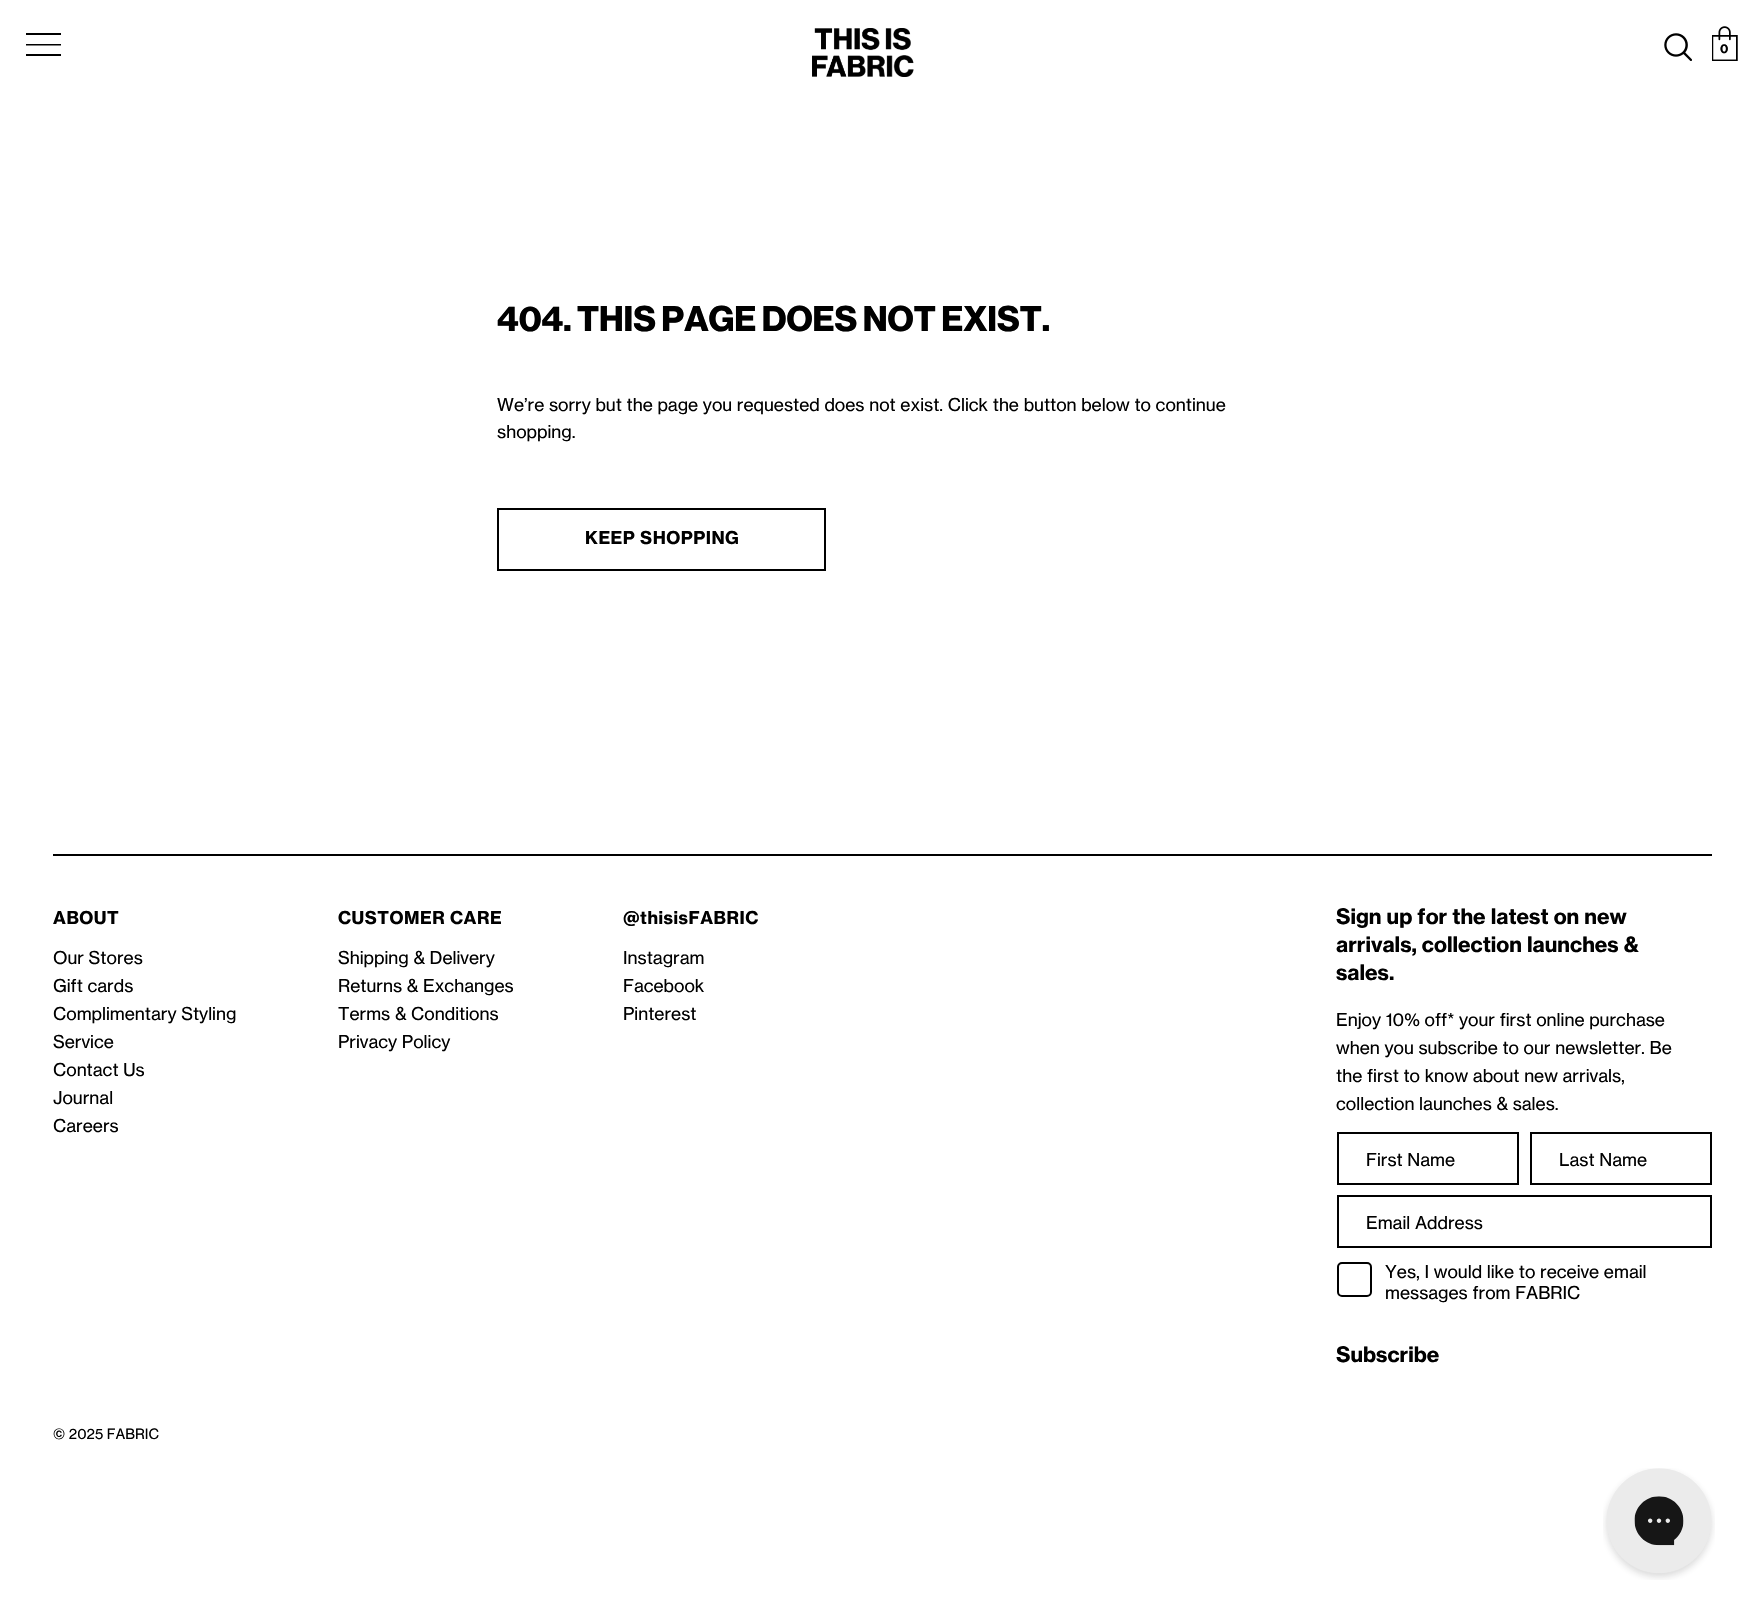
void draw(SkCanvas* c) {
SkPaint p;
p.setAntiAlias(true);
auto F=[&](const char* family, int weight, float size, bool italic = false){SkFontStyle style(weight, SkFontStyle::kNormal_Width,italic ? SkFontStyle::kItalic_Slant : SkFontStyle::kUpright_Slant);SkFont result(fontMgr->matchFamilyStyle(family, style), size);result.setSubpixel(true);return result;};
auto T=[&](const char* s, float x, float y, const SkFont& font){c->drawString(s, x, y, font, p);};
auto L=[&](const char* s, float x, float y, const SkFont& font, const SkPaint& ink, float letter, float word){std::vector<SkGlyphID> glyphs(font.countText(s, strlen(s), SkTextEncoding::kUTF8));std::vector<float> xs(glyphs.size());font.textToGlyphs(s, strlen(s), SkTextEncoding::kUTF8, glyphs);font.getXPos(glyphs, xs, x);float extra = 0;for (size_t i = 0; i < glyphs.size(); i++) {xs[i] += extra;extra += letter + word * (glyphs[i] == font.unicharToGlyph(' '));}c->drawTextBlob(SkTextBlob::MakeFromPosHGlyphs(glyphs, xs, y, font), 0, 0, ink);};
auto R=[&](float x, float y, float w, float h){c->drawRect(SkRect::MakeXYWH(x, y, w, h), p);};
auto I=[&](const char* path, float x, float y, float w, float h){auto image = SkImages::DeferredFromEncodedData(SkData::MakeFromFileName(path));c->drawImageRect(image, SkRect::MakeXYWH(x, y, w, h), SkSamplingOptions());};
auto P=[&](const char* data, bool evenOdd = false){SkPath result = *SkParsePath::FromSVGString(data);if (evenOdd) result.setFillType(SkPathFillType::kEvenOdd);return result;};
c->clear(0xffffffff);
p.setColor(0xff000000);
c->drawPath(P("M26 33h35v2h-35zm0 21h35v2h-35zm0-10h35v1.5h-35z"),p);
I("1.png",812,28,102,49);
I("2.png",1664,33,28,28);
I("3.png",1712,26,26,35);
auto f1 = F("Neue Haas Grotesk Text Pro",700,12);
T("0",1720,53,f1);
auto f2 = F("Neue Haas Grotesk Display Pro",700,35);
T("404. THIS PAGE DOES NOT EXIST.",497,331,f2);
auto f3 = F("Neue Haas Grotesk Text Pro",400,17.5);
T("We’re sorry but the page you requested does not exist. Click the button below to continue",497,411,f3);
T("shopping.",497,438,f3);
p.setStroke(true);
p.setStrokeWidth(2);
c->drawRect(SkRect::MakeXYWH(498,509,327,61),p);
auto f4 = F("Neue Haas Grotesk Text Pro",700,17.5);
p.setStroke(false);
L("KEEP SHOPPING",585,544,f4,p,.5,0);
R(53,854,1659,2);
L("ABOUT",53,924,f4,p,.5,0);
T("Our Stores",53,964,f3);
T("Gift cards",53,992,f3);
T("Complimentary Styling",53,1020,f3);
T("Service",53,1048,f3);
T("Contact Us",53,1076,f3);
T("Journal",53,1104,f3);
T("Careers",53,1132,f3);
L("CUSTOMER CARE",338,924,f4,p,.5,0);
T("Shipping & Delivery",338,964,f3);
T("Returns & Exchanges",338,992,f3);
T("Terms & Conditions",338,1020,f3);
T("Privacy Policy",338,1048,f3);
L("@thisisFABRIC",623,924,f4,p,.5,0);
T("Instagram",623,964,f3);
T("Facebook",623,992,f3);
T("Pinterest",623,1020,f3);
auto f5 = F("Neue Haas Grotesk Text Pro",700,21);
T("Sign up for the latest on new",1336,924,f5);
T("arrivals, collection launches &",1336,952,f5);
T("sales.",1336,980,f5);
T("Enjoy 10% off* your first online purchase",1336,1026,f3);
T("when you subscribe to our newsletter. Be",1336,1054,f3);
T("the first to know about new arrivals,",1336,1082,f3);
T("collection launches & sales.",1336,1110,f3);
p.setStroke(true);
c->drawRect(SkRect::MakeXYWH(1338,1133,180,51),p);
p.setStroke(false);
T("First Name",1366,1166,f3);
p.setStroke(true);
c->drawRect(SkRect::MakeXYWH(1531,1133,180,51),p);
p.setStroke(false);
T("Last Name",1559,1166,f3);
p.setStroke(true);
c->drawRect(SkRect::MakeXYWH(1338,1196,373,51),p);
p.setStroke(false);
T("Email Address",1366,1229,f3);
p.setStroke(true);
c->drawRoundRect(SkRect::MakeXYWH(1338,1263,33,33),4,4,p);
p.setStroke(false);
T("Yes, I would like to receive email",1385,1278,f3);
T("messages from FABRIC",1385,1299,f3);
T("Subscribe",1336,1362,f5);
auto f6 = F("Neue Haas Grotesk Text Pro",400,14);
T("© 2025 FABRIC",53,1439,f6);
I("4.png",1603,1468,112,112);
}
